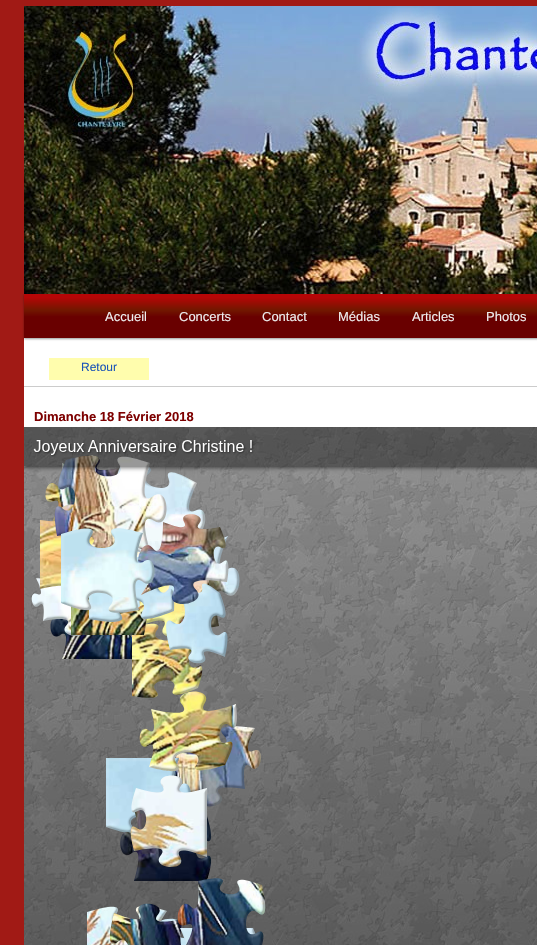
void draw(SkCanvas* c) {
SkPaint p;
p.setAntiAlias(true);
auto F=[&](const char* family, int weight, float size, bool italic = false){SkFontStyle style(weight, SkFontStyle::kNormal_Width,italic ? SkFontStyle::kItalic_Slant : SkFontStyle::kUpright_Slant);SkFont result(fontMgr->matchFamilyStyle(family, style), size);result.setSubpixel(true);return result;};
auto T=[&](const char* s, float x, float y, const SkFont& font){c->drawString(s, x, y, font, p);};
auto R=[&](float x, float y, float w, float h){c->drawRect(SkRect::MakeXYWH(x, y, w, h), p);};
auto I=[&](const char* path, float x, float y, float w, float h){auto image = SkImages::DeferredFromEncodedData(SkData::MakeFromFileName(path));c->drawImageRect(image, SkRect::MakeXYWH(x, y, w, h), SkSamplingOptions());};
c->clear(0xffa11a15);
p.setColor(0xffffffff);
R(24,338,513,89);
p.setColor(0x66000000);
p.setMaskFilter(SkMaskFilter::MakeBlur(kNormal_SkBlurStyle, 1));
c->drawRect(SkRect::MakeXYWH(24,295,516,44),p);
p.setMaskFilter(nullptr);
I("1.png",24,6,513,288);
{
const SkColor colors[] = {0xff690000,0xff711700,0xffb50606};
const float stops[] = {.48,.63,.92};
const SkPoint ends[] = {{24,338}, {24,294}};
p.setShader(SkGradientShader::MakeLinear(ends, colors, stops, 3, SkTileMode::kClamp));
p.setAlpha(255);
}
R(24,294,513,44);
auto f1 = F("Liberation Sans",400,13);
p.setShader(nullptr);
p.setColor(0xffeeeeee);
T("Accueil",105,321,f1);
T("Concerts",179,321,f1);
T("Contact",262,321,f1);
T("Médias",338,321,f1);
T("Articles",412,321,f1);
T("Photos",486,321,f1);
p.setColor(0xfffffdad);
R(49,358,100,22);
auto f2 = F("Liberation Sans",400,12);
p.setColor(0xff1953b8);
T("Retour",81,371,f2);
p.setColor(0xffcccccc);
R(24,386,513,1);
auto f3 = F("Liberation Sans",700,13);
p.setColor(0xff7d0000);
T("Dimanche 18 Février 2018",34,421,f3);
I("2.png",24,427,513,518);
}
